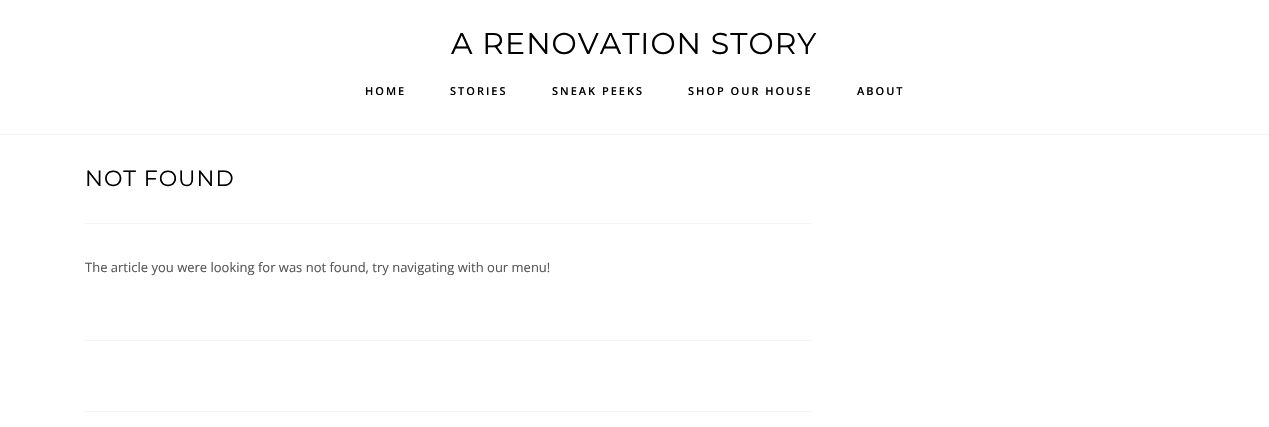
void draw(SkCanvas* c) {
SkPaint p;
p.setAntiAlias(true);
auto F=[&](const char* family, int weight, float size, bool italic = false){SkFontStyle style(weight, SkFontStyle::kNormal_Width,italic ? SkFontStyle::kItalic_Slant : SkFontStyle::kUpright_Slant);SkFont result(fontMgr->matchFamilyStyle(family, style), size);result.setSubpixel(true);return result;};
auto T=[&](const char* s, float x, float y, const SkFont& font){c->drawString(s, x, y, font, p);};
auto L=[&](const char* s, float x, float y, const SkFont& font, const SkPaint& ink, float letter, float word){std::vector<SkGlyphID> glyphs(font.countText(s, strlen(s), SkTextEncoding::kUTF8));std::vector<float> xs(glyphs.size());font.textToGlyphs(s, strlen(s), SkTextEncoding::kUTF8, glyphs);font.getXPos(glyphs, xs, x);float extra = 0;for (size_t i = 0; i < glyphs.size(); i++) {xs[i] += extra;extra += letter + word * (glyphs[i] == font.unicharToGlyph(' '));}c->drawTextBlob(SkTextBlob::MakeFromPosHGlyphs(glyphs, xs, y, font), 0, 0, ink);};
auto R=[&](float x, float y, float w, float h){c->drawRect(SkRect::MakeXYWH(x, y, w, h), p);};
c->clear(0xffffffff);
auto f1 = F("Montserrat",100,30);
p.setColor(0xff000000);
L("A RENOVATION STORY",451,54,f1,p,1,0);
auto f2 = F("Open Sans",600,11);
L("HOME",365,95,f2,p,2,0);
L("STORIES",450,95,f2,p,2,0);
L("SNEAK PEEKS",552,95,f2,p,2,0);
L("SHOP OUR HOUSE",688,95,f2,p,2,0);
L("ABOUT",857,95,f2,p,2,0);
p.setColor(0xfff4f4f4);
R(0,134,1269,1);
R(85,411,726,1);
R(85,223,726,1);
auto f3 = F("Montserrat",100,22);
p.setColor(0xff000000);
L("NOT FOUND",85,186,f3,p,1,0);
auto f4 = F("Open Sans",400,13);
p.setColor(0xff565656);
T("The article you were looking for was not found, try navigating with our menu!",85,272,f4);
p.setColor(0xfff4f4f4);
R(85,340,726,1);
}
